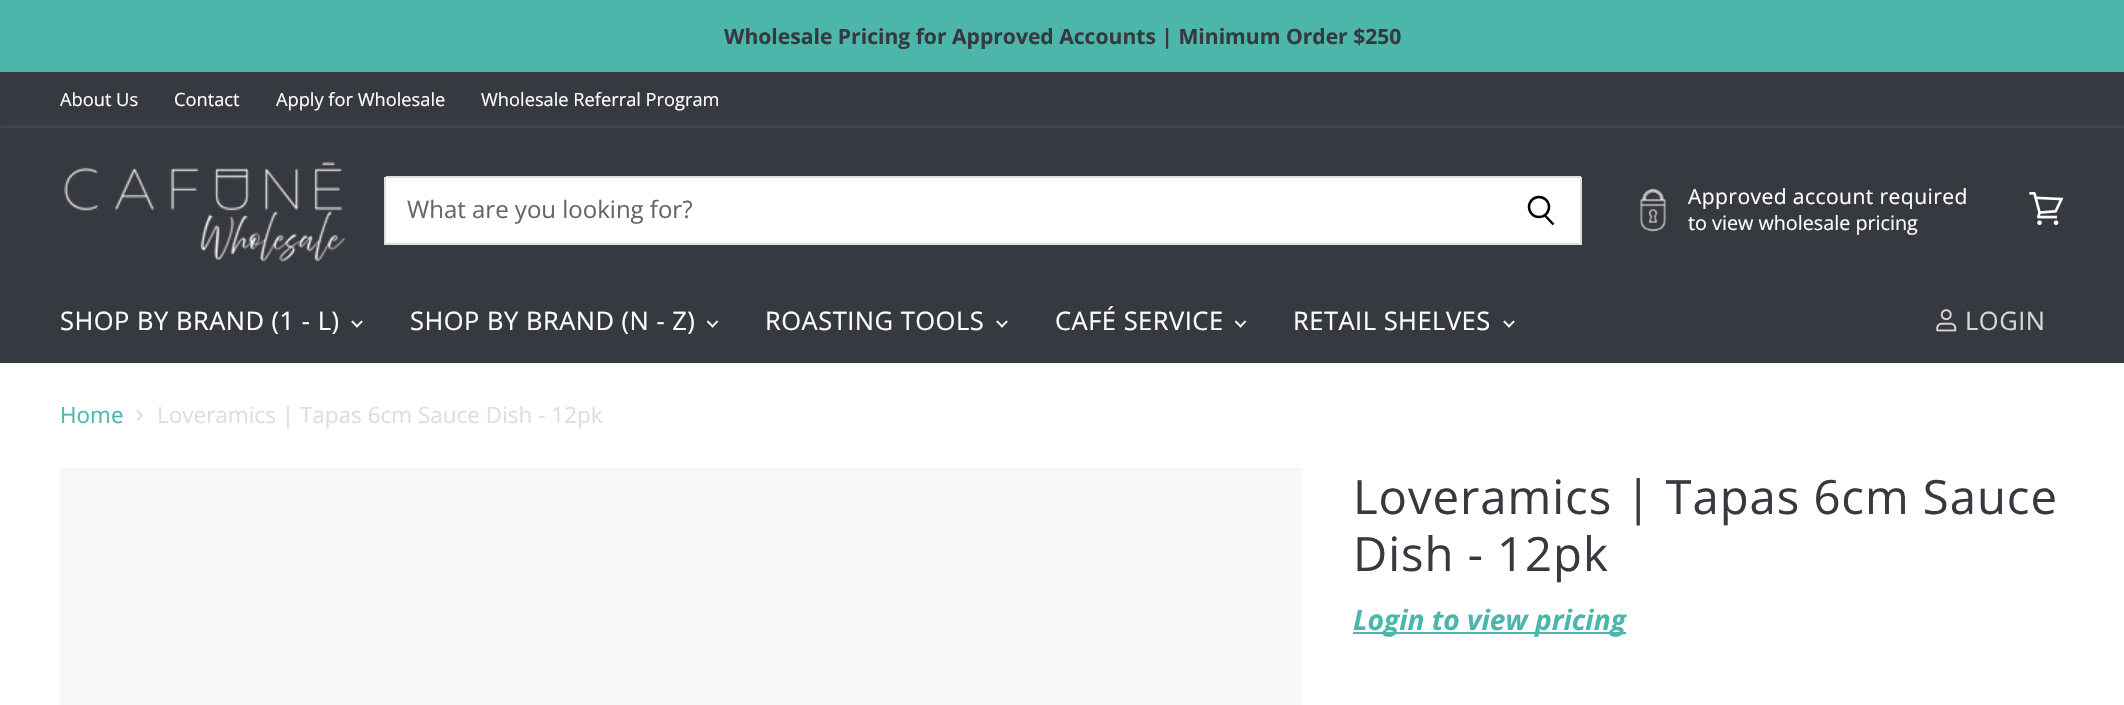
void draw(SkCanvas* c) {
SkPaint p;
p.setAntiAlias(true);
auto F=[&](const char* family, int weight, float size, bool italic = false){SkFontStyle style(weight, SkFontStyle::kNormal_Width,italic ? SkFontStyle::kItalic_Slant : SkFontStyle::kUpright_Slant);SkFont result(fontMgr->matchFamilyStyle(family, style), size);result.setSubpixel(true);return result;};
auto T=[&](const char* s, float x, float y, const SkFont& font){c->drawString(s, x, y, font, p);};
auto L=[&](const char* s, float x, float y, const SkFont& font, const SkPaint& ink, float letter, float word){std::vector<SkGlyphID> glyphs(font.countText(s, strlen(s), SkTextEncoding::kUTF8));std::vector<float> xs(glyphs.size());font.textToGlyphs(s, strlen(s), SkTextEncoding::kUTF8, glyphs);font.getXPos(glyphs, xs, x);float extra = 0;for (size_t i = 0; i < glyphs.size(); i++) {xs[i] += extra;extra += letter + word * (glyphs[i] == font.unicharToGlyph(' '));}c->drawTextBlob(SkTextBlob::MakeFromPosHGlyphs(glyphs, xs, y, font), 0, 0, ink);};
auto R=[&](float x, float y, float w, float h){c->drawRect(SkRect::MakeXYWH(x, y, w, h), p);};
auto I=[&](const char* path, float x, float y, float w, float h){auto image = SkImages::DeferredFromEncodedData(SkData::MakeFromFileName(path));c->drawImageRect(image, SkRect::MakeXYWH(x, y, w, h), SkSamplingOptions());};
auto P=[&](const char* data, bool evenOdd = false){SkPath result = *SkParsePath::FromSVGString(data);if (evenOdd) result.setFillType(SkPathFillType::kEvenOdd);return result;};
c->clear(0xffffffff);
p.setColor(0xff4bb6a9);
R(0,0,2124,72);
auto f1 = F("Open Sans",700,21.1);
p.setColor(0xff36393f);
T("Wholesale Pricing for Approved Accounts | Minimum Order $250",724,44,f1);
R(0,72,2124,56);
auto f2 = F("Open Sans",400,18.25);
p.setColor(0xffffffff);
T("About Us",60,106,f2);
T("Contact",174,106,f2);
T("Apply for Wholesale",276,106,f2);
T("Wholesale Referral Program",481,106,f2);
p.setColor(0x40ffffff);
p.setMaskFilter(SkMaskFilter::MakeBlur(kNormal_SkBlurStyle, 3));
c->drawRect(SkRect::MakeXYWH(0,129,2124,236),p);
p.setMaskFilter(nullptr);
p.setColor(0xff36393f);
R(0,128,2124,235);
I("1.png",64,161,282,101);
p.setColor(0xffffffff);
R(386,178,1194,65);
p.setColor(0xffdedede);
R(386,176,1195,2);
R(1580,177,2,68);
R(386,243,1195,2);
p.setStroke(true);
p.setStrokeWidth(2.5);
p.setColor(0xff000000);
c->drawPath(P("M1553.5 224.5l-8.5-9"),p);
c->drawCircle(1539,207,10,p);
p.setStroke(false);
p.setColor(0xffdedede);
R(384,177,2,68);
auto f3 = F("Open Sans",400,24);
p.setColor(0xff666666);
T("What are you looking for?",407,218,f3);
I("2.png",1640,188,26,44);
auto f4 = F("Open Sans",400,21.1);
p.setColor(0xffffffff);
L("Approved account required",1688,204,f4,p,.4,0);
auto f5 = F("Open Sans",400,19.75);
T("to view wholesale pricing",1688,230,f5);
I("3.png",2029,192,35,33);
auto f6 = F("Open Sans",400,25.5);
L("SHOP BY BRAND (1 - L)",60,330,f6,p,.5,0);
I("4.png",351,320,12,8);
L("SHOP BY BRAND (N - Z)",410,330,f6,p,.5,0);
I("5.png",707,320,12,8);
L("ROASTING TOOLS",765,330,f6,p,.5,0);
I("4.png",996,320,12,8);
L("CAFÉ SERVICE",1055,330,f6,p,.5,0);
I("5.png",1235,320,12,8);
L("RETAIL SHELVES",1293,330,f6,p,.5,0);
I("4.png",1503,320,12,8);
I("6.png",1936,309,21,23);
p.setColor(0xffd7d7d9);
L("LOGIN",1965,330,f6,p,.5,0);
auto f7 = F("Open Sans",400,22.5);
p.setColor(0xff4bb6a9);
T("Home",60,423,f7);
c->save();
c->clipPath(P("M136.5 421v-12h7.5v12z"),true);
p.setStroke(true);
p.setStrokeWidth(1.9);
p.setColor(0xffdedede);
c->drawPath(P("M137 421l5-5.5l-5-5"),p);
c->restore();
p.setStroke(false);
T("Loveramics | Tapas 6cm Sauce Dish - 12pk",157,423,f7);
p.setColor(0xfff7f7f7);
R(60,468,1242,237);
auto f8 = F("Open Sans",400,47.25);
p.setColor(0xff36393f);
L("Loveramics | Tapas 6cm Sauce",1353,514,f8,p,.95,0);
L("Dish - 12pk",1353,571,f8,p,.95,0);
p.setColor(0xff4bb6a9);
R(1353,632,273,2);
auto f9 = F("Open Sans",700,28.1,true);
T("Login to view pricing",1353,630,f9);
}
